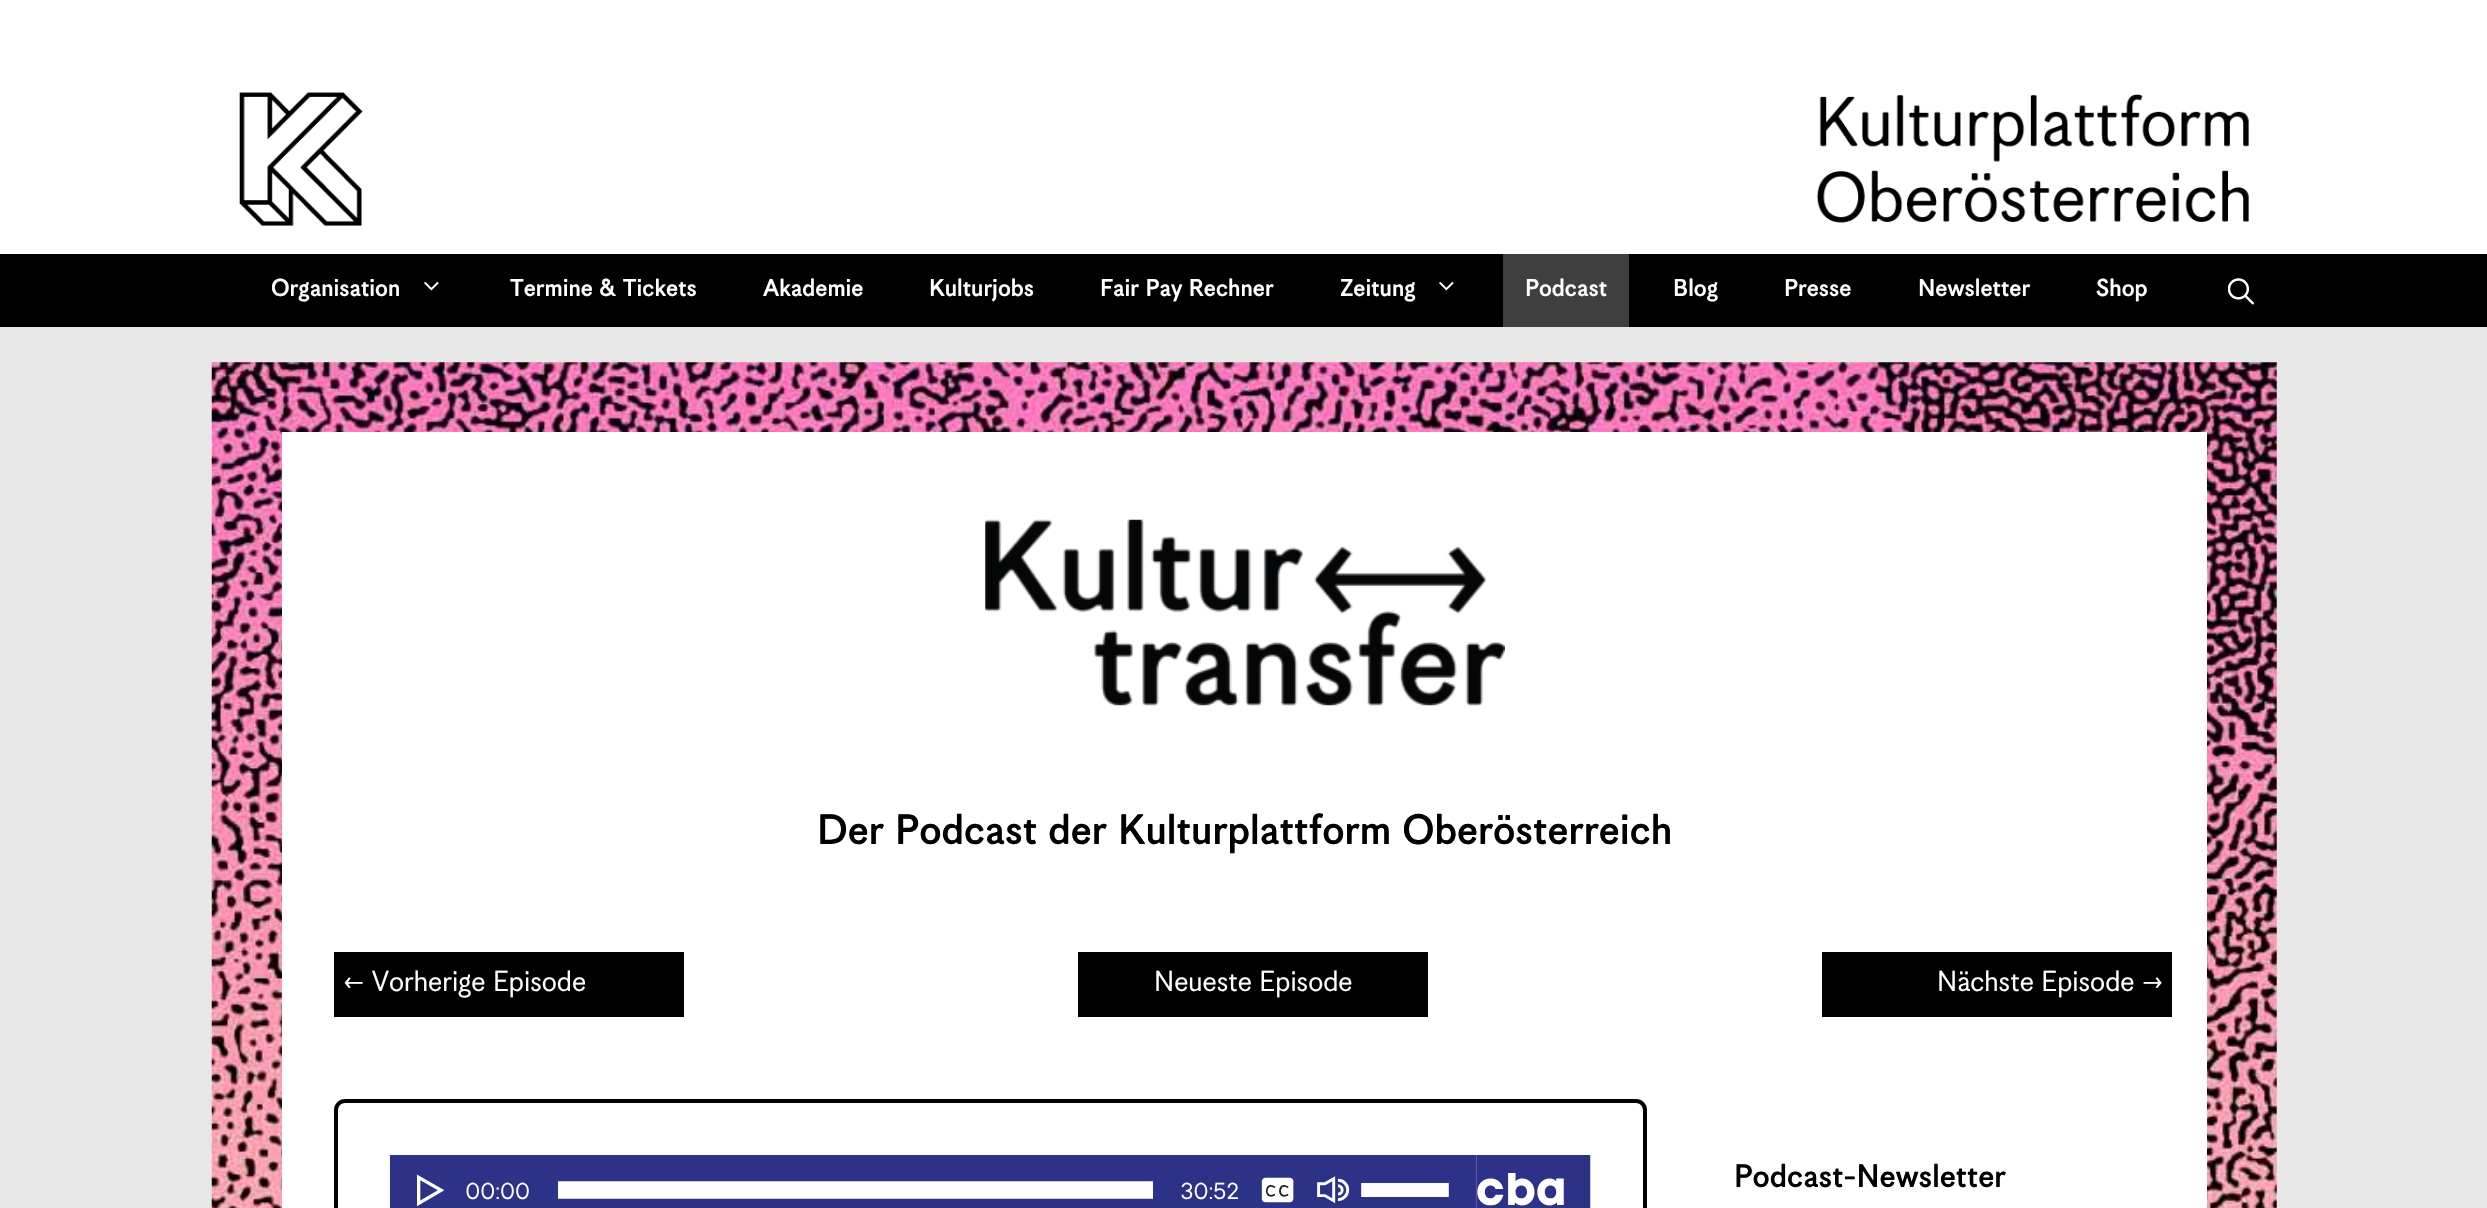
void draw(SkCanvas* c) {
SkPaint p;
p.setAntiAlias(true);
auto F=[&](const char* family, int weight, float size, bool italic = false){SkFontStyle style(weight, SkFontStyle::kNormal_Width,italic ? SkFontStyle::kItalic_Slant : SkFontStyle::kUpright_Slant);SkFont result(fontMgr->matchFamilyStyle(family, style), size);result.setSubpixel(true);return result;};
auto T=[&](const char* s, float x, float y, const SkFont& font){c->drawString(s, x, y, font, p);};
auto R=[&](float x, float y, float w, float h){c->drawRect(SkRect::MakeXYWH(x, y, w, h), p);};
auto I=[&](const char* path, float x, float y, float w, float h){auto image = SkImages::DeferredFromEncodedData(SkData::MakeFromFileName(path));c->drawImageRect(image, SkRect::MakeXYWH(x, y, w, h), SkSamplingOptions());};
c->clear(0xffe7e7e7);
p.setColor(0xffffffff);
R(0,0,2487,254);
I("1.png",239,92,2010,134);
p.setColor(0xff000000);
R(0,254,2487,73);
auto f1 = F("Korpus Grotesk",700,26.25);
p.setColor(0xffffffff);
T("Organisation",271,296,f1);
I("2.png",424,281,15,10);
T("Termine & Tickets",510,296,f1);
T("Akademie",763,296,f1);
T("Kulturjobs",929,296,f1);
T("Fair Pay Rechner",1100,296,f1);
T("Zeitung",1340,296,f1);
I("2.png",1439,281,15,10);
p.setColor(0xff3f3f3f);
R(1503,254,126,73);
p.setColor(0xffffffff);
T("Podcast",1525,296,f1);
T("Blog",1673,296,f1);
T("Presse",1784,296,f1);
T("Newsletter",1918,296,f1);
T("Shop",2096,296,f1);
I("3.png",2228,278,26,27);
I("4.png",211,362,2066,846);
R(282,432,1925,776);
I("5.png",985,519,520,187);
auto f2 = F("Korpus Grotesk",700,45.5);
p.setColor(0xff000000);
T("Der Podcast der Kulturplattform Oberösterreich",817,844,f2);
R(334,952,350,65);
auto f3 = F("Korpus Grotesk",400,31.5);
p.setColor(0xffffffff);
T("← Vorherige Episode",343,991,f3);
p.setColor(0xff000000);
R(1078,952,350,65);
p.setColor(0xffffffff);
T("Neueste Episode",1154,991,f3);
p.setColor(0xff000000);
R(1822,952,350,65);
p.setColor(0xffffffff);
T("Nächste Episode →",1937,991,f3);
p.setStroke(true);
p.setStrokeWidth(4);
p.setColor(0xff000000);
c->drawRoundRect(SkRect::MakeXYWH(336,1101,1309,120),9,9,p);
I("6.png",390,1155,1201,53);
auto f4 = F("Korpus Grotesk",700,35);
p.setStroke(false);
T("Podcast-Newsletter",1734,1187,f4);
}
